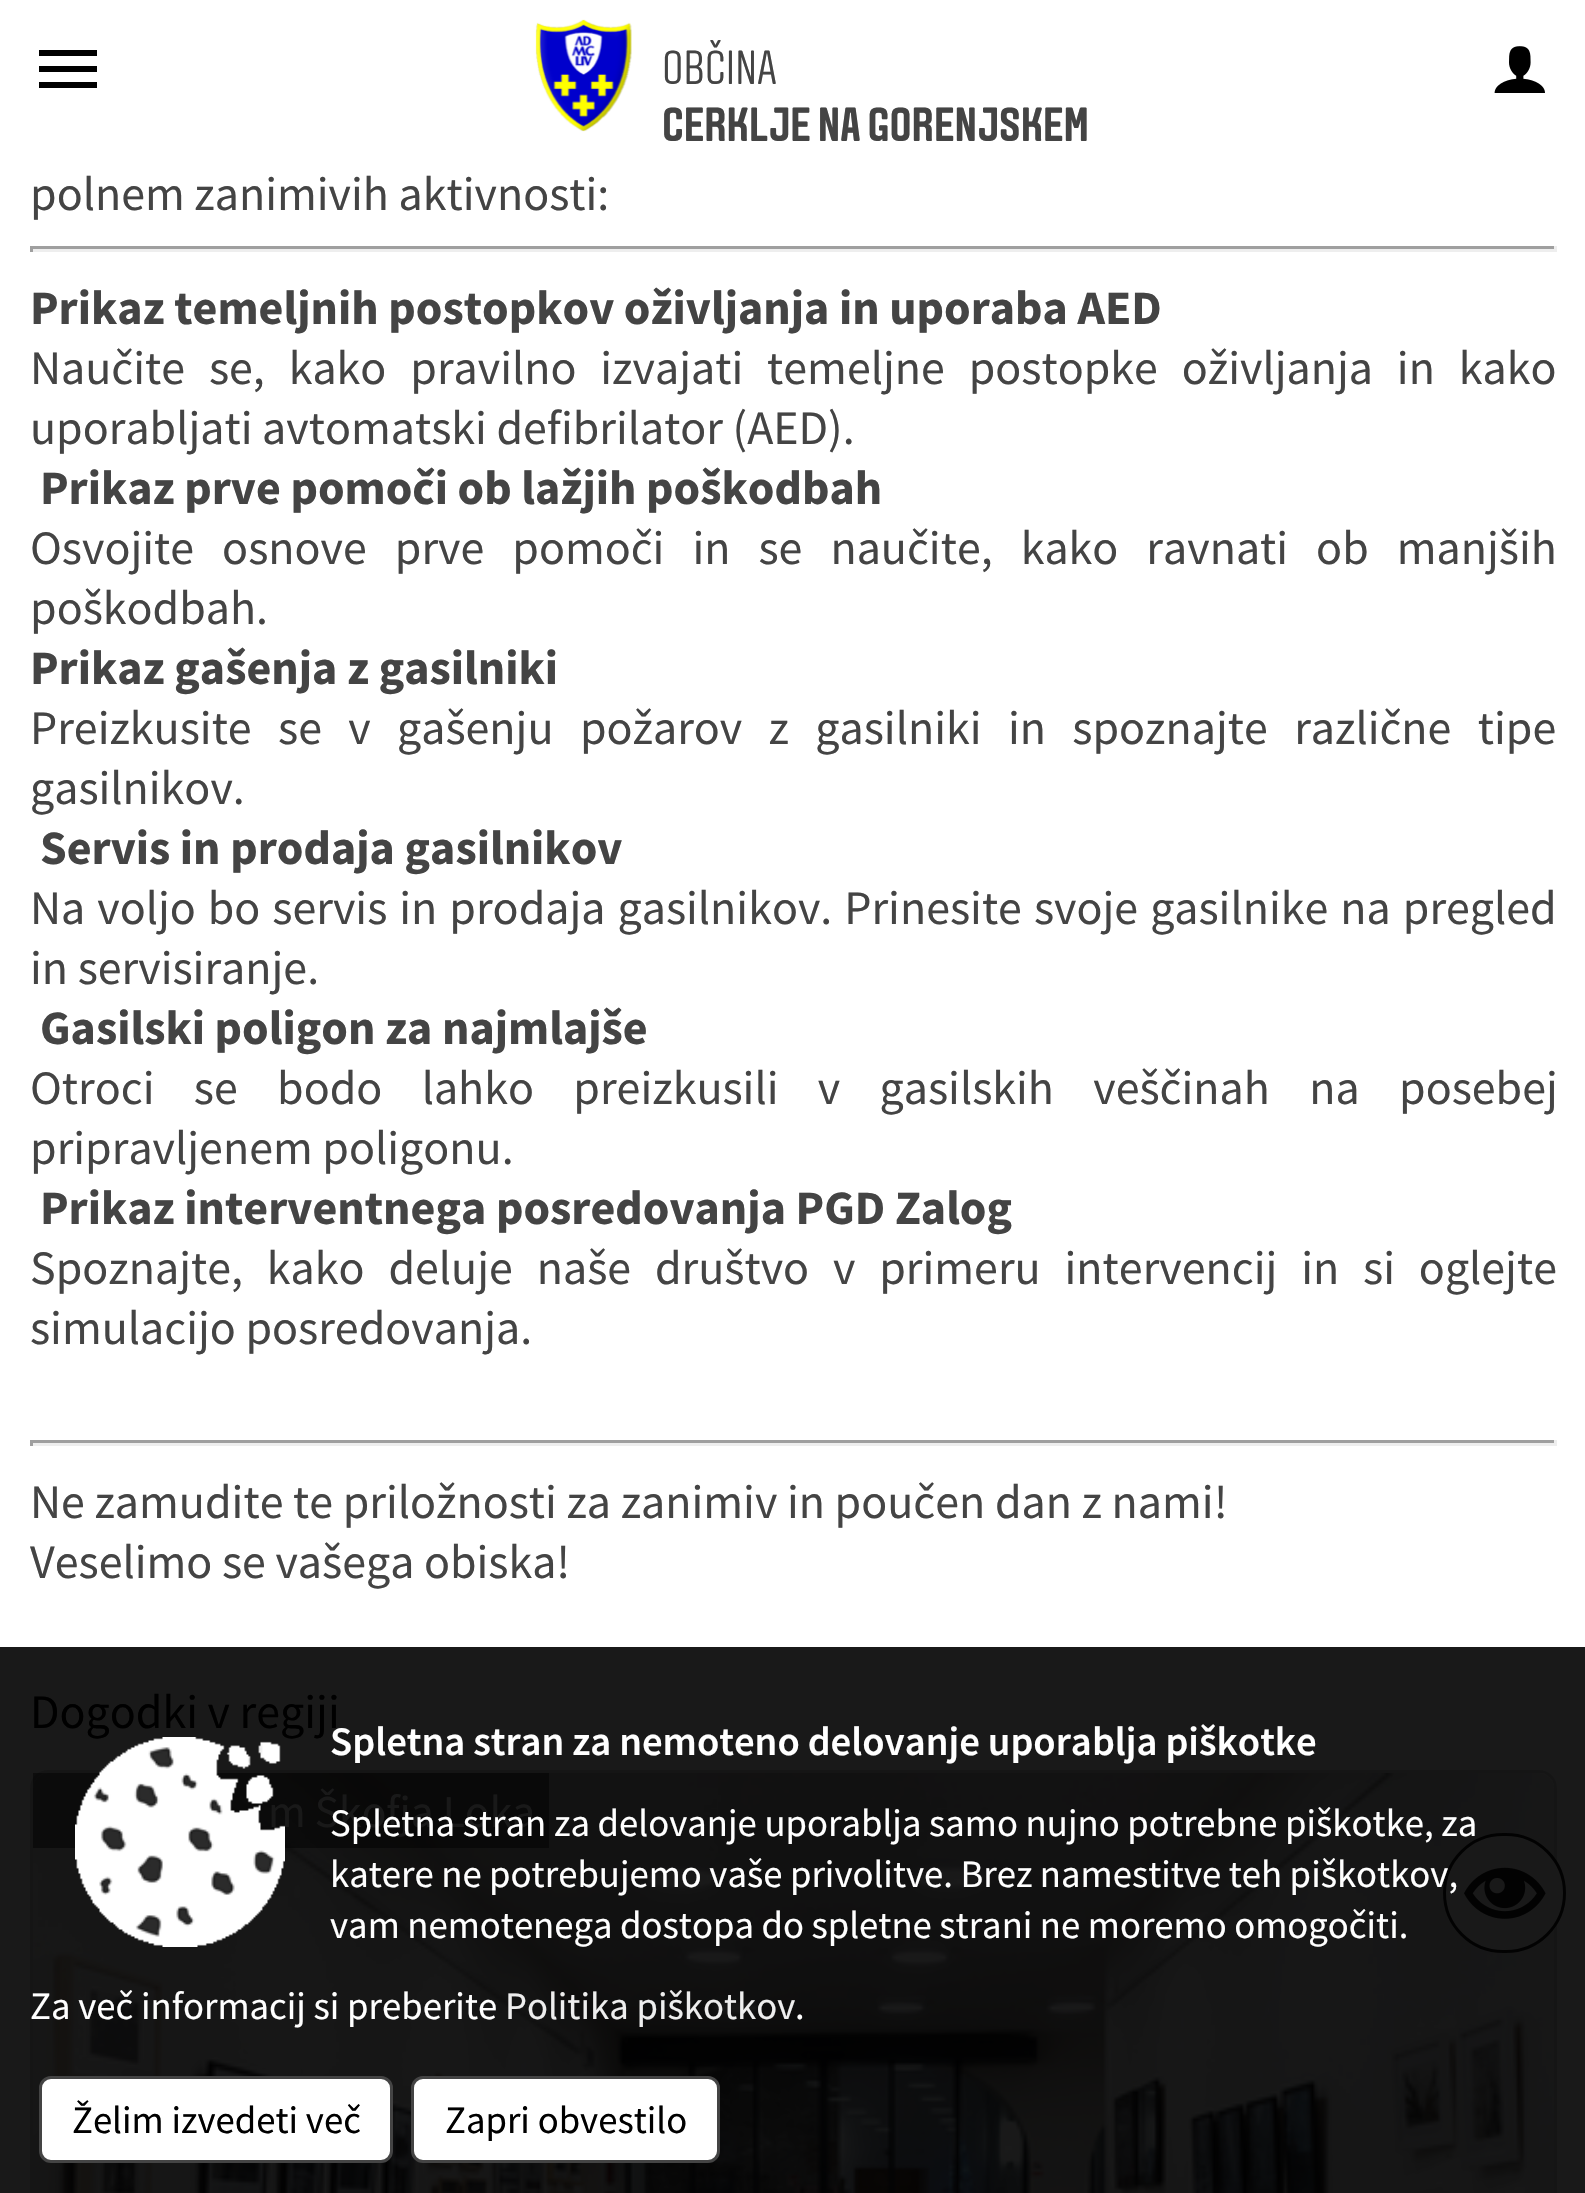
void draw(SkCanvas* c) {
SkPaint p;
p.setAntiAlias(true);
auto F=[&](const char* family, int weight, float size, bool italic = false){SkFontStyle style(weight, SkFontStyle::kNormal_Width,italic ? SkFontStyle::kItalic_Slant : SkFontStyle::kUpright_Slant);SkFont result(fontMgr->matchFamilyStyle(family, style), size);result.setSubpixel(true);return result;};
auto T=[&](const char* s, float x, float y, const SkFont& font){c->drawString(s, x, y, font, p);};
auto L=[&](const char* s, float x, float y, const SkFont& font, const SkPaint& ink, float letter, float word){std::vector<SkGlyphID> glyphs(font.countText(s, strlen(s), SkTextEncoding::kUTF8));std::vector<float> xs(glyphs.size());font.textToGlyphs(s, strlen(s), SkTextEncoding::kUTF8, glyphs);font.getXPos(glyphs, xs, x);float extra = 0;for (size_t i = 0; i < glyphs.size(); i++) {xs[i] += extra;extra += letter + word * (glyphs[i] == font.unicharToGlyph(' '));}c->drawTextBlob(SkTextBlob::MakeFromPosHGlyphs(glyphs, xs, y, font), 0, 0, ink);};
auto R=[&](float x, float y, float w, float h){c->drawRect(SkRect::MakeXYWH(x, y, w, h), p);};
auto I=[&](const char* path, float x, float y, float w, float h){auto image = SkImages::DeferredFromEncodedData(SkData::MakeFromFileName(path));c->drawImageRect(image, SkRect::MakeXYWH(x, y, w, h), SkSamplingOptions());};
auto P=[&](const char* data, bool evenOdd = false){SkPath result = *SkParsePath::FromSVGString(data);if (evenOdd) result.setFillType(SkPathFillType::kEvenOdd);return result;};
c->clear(0xffffffff);
p.setColor(0xff191919);
R(0,1647,1585,546);
I("1.png",535,19,97,113);
auto f1 = F("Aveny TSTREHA",300,48);
p.setColor(0xff444444);
T("OBČINA",662,84,f1);
auto f2 = F("Aveny T STREHA",600,48);
T("CERKLJE NA GORENJSKEM",662,141,f2);
p.setColor(0xff000000);
c->drawPath(P("M39 50h58v6h-58zm0 22v-6h58v6zm0 16v-6h58v6z"),p);
I("2.png",1494,46,51,47);
auto f3 = F("Source Sans Pro",400,48);
p.setColor(0xff444444);
T("polnem zanimivih aktivnosti:",30,210,f3);
p.setColor(0xff9f9f9f);
R(30,246,1527,3);
p.setColor(0xffeeeeee);
R(1554,246,3,6);
R(30,249,1527,3);
p.setColor(0xff9f9f9f);
R(30,246,3,6);
auto f4 = F("Source Sans Pro",700,48);
p.setColor(0xff444444);
T("Prikaz temeljnih postopkov oživljanja in uporaba AED",30,324,f4);
L("Naučite se, kako pravilno izvajati temeljne postopke oživljanja in kako",30,384,f3,p,0,14.25);
T("uporabljati avtomatski defibrilator (AED).",30,444,f3);
T("Prikaz prve pomoči ob lažjih poškodbah",40,504,f4);
L("Osvojite osnove prve pomoči in se naučite, kako ravnati ob manjših",30,564,f3,p,0,18.4);
T("poškodbah.",30,624,f3);
T("Prikaz gašenja z gasilniki",30,684,f4);
L("Preizkusite se v gašenju požarov z gasilniki in spoznajte različne tipe",30,744,f3,p,0,16.75);
T("gasilnikov.",30,804,f3);
T("Servis in prodaja gasilnikov",40,864,f4);
L("Na voljo bo servis in prodaja gasilnikov. Prinesite svoje gasilnike na pregled",30,924,f3,p,0,2.4);
T("in servisiranje.",30,984,f3);
T("Gasilski poligon za najmlajše",40,1044,f4);
L("Otroci se bodo lahko preizkusili v gasilskih veščinah na posebej",30,1104,f3,p,0,29.75);
T("pripravljenem poligonu.",30,1164,f3);
T("Prikaz interventnega posredovanja PGD Zalog",40,1224,f4);
L("Spoznajte, kako deluje naše društvo v primeru intervencij in si oglejte",30,1284,f3,p,0,14.25);
T("simulacijo posredovanja.",30,1344,f3);
p.setColor(0xff9f9f9f);
R(30,1440,1527,3);
p.setColor(0xffeeeeee);
R(1554,1440,3,6);
R(30,1443,1527,3);
p.setColor(0xff9f9f9f);
R(30,1440,3,6);
p.setColor(0xff444444);
T("Ne zamudite te priložnosti za zanimiv in poučen dan z nami!",30,1518,f3);
T("Veselimo se vašega obiska!",30,1578,f3);
p.setColor(0xff000000);
T("Dogodki v regiji",30,1728,f3);
p.setStroke(true);
p.setStrokeWidth(3);
p.setColor(0xff151515);
c->drawRoundRect(SkRect::MakeXYWH(31.5,1771.5,1524,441),16.5,16.5,p);
I("3.png",33,1773,1521,420);
p.setStroke(false);
p.setColor(0x80000000);
R(33,1773,516,75);
auto f5 = F("Source Sans Pro",400,45.5);
p.setColor(0xff191919);
T("m Škofja Loka",268,1827,f5);
auto f6 = F("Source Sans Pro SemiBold",600,40.7);
p.setColor(0xffffffff);
L("Spletna stran za nemoteno delovanje uporablja piškotke",330,1755,f6,p,0,-.25);
p.setColor(0xff191919);
c->drawRoundRect(SkRect::MakeXYWH(1444.5,1834.5,120,117),58.5,58.5,p);
p.setStroke(true);
p.setColor(0xff020202);
c->drawRoundRect(SkRect::MakeXYWH(1444.5,1834.5,120,117),58.5,58.5,p);
auto f7 = F("Source Sans Pro",400,38.75);
p.setStroke(false);
p.setColor(0xffffffff);
L("Spletna stran za delovanje uporablja samo nujno potrebne piškotke, za",330,1836,f7,p,0,-.1);
L("katere ne potrebujemo vaše privolitve. Brez namestitve teh piškotkov,",330,1887,f7,p,0,-.25);
L("vam nemotenega dostopa do spletne strani ne moremo omogočiti.",330,1938,f7,p,0,-.25);
T("Za več informacij si preberite",30,2019,f7);
p.setColor(0xffeeeeee);
T("Politika piškotkov",505,2019,f7);
p.setColor(0xffffffff);
T(".",795,2019,f7);
I("4.png",75,1737,210,210);
c->drawRoundRect(SkRect::MakeXYWH(40.5,2077.5,351,84),10.5,10.5,p);
p.setStroke(true);
p.setColor(0xff444444);
c->drawRoundRect(SkRect::MakeXYWH(40.5,2077.5,351,84),10.5,10.5,p);
p.setStroke(false);
p.setColor(0xff000000);
T("Želim izvedeti več",72,2133,f7);
p.setColor(0xffffffff);
c->drawRoundRect(SkRect::MakeXYWH(412.5,2077.5,306,84),10.5,10.5,p);
p.setStroke(true);
p.setColor(0xff444444);
c->drawRoundRect(SkRect::MakeXYWH(412.5,2077.5,306,84),10.5,10.5,p);
p.setStroke(false);
p.setColor(0xff000000);
T("Zapri obvestilo",445,2133,f7);
I("5.png",1464,1867,82,52);
}
